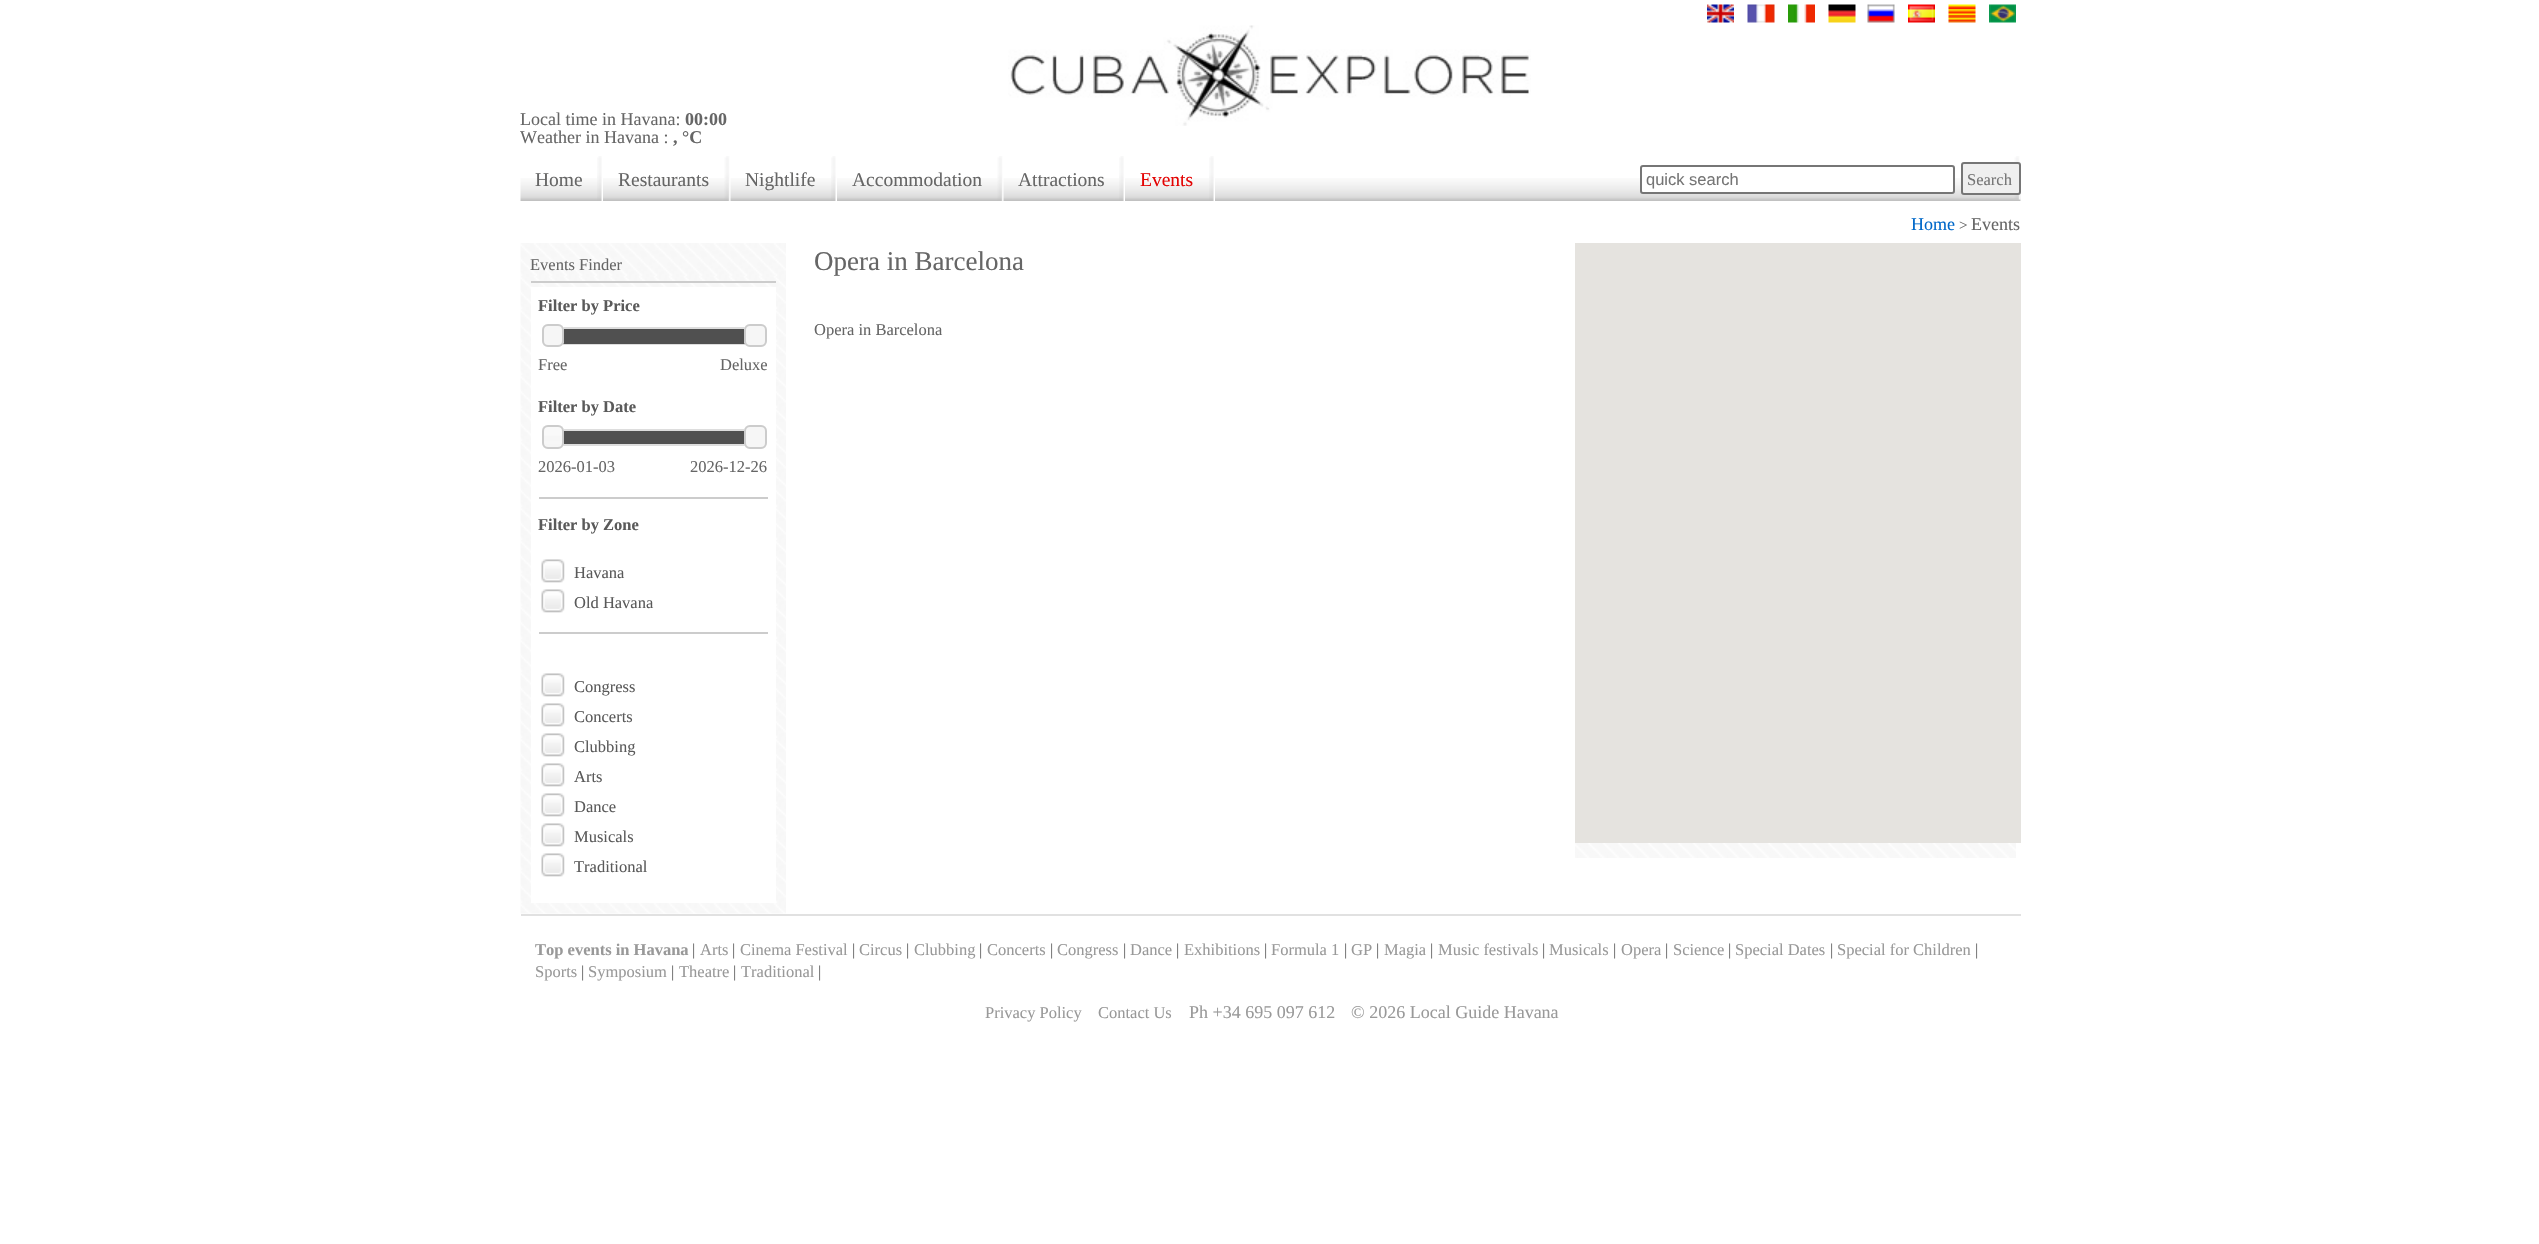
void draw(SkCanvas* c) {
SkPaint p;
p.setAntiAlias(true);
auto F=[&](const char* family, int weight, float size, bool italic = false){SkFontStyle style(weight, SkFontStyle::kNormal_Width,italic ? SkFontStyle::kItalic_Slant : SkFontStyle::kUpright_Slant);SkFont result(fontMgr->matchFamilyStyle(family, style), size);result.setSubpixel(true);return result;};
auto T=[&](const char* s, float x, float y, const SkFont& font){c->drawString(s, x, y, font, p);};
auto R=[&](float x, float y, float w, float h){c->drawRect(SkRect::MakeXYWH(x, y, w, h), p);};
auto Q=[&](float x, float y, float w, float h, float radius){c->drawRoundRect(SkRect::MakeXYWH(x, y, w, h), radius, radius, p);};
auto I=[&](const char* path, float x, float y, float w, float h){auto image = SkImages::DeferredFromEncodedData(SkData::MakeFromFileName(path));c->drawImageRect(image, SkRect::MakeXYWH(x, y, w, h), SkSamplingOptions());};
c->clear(0xffffffff);
I("1.png",1707,4,27,19);
I("2.png",1747,4,28,19);
I("3.png",1788,4,27,19);
I("4.png",1828,4,28,19);
I("5.png",1867,4,28,19);
I("6.png",1908,4,27,19);
I("7.png",1948,4,28,19);
I("8.png",1989,4,27,19);
auto f1 = F("Liberation Serif",400,18);
p.setColor(0xff666666);
T("Local time in Havana:",520,125,f1);
auto f2 = F("Liberation Serif",700,18);
T("00:00",685,125,f2);
T("Weather in Havana :",520,143,f1);
T(", °C",673,143,f2);
I("9.png",1008,25,523,101);
I("10.png",520,178,1501,23);
I("11.png",597,156,6,45);
auto f3 = F("Liberation Serif",400,19.5);
T("Home",535,186,f3);
I("12.png",724,156,7,45);
T("Restaurants",618,186,f3);
I("13.png",831,156,6,45);
T("Nightlife",745,186,f3);
I("14.png",997,156,7,45);
T("Accommodation",852,186,f3);
I("11.png",1119,156,6,45);
T("Attractions",1018,186,f3);
I("11.png",1209,156,6,45);
p.setColor(0xffe40404);
T("Events",1140,186,f3);
I("15.png",2014,156,7,44);
p.setColor(0xffffffff);
c->drawRoundRect(SkRect::MakeXYWH(1641,166,313,27),2,2,p);
p.setStroke(true);
p.setStrokeWidth(2);
p.setColor(0xff767676);
c->drawRoundRect(SkRect::MakeXYWH(1641,166,313,27),2,2,p);
auto f4 = F("Liberation Sans",400,16.5);
p.setStroke(false);
p.setColor(0xff757575);
T("quick search",1646,185,f4);
p.setColor(0xffefefef);
c->drawRoundRect(SkRect::MakeXYWH(1962,163,58,31),2,2,p);
p.setStroke(true);
p.setColor(0xff767676);
c->drawRoundRect(SkRect::MakeXYWH(1962,163,58,31),2,2,p);
auto f5 = F("Liberation Serif",400,16.5);
p.setStroke(false);
p.setColor(0xff757575);
T("Search",1967,185,f5);
p.setColor(0xff0068c9);
T("Home",1911,230,f1);
auto f6 = F("Liberation Serif",400,15);
p.setColor(0xff666666);
T(">",1959,230,f6);
T("Events",1971,230,f1);
I("16.png",520,243,266,671);
p.setColor(0xffcccccc);
R(531,281,245,2);
p.setColor(0xff666666);
T("Events Finder",530,270,f5);
p.setColor(0xffffffff);
R(531,287,245,616);
auto f7 = F("Liberation Serif",700,16.5);
p.setColor(0xff5a5a5a);
T("Filter by Price",538,311,f7);
p.setStroke(true);
p.setColor(0xffdddddd);
c->drawRect(SkRect::MakeXYWH(552,328,203,16),p);
p.setStroke(false);
p.setColor(0xff505050);
R(563,329,182,15);
p.setColor(0xfff6f6f6);
Q(542,324,22,23,6);
I("17.png",563,327,1,17);
p.setStroke(true);
p.setColor(0xffcccccc);
c->drawRoundRect(SkRect::MakeXYWH(543,325,20,21),5,5,p);
p.setStroke(false);
p.setColor(0xfff6f6f6);
Q(744,324,23,23,6);
I("18.png",744,327,1,17);
p.setStroke(true);
p.setColor(0xffcccccc);
c->drawRoundRect(SkRect::MakeXYWH(745,325,21,21),5,5,p);
p.setStroke(false);
p.setColor(0xff666666);
T("Free",538,370,f5);
T("Deluxe",720,370,f5);
p.setColor(0xff5a5a5a);
T("Filter by Date",538,412,f7);
p.setStroke(true);
p.setColor(0xffdddddd);
c->drawRect(SkRect::MakeXYWH(552,430,203,15),p);
p.setStroke(false);
p.setColor(0xff505050);
R(563,431,182,13);
p.setColor(0xfff6f6f6);
Q(542,425,22,24,6);
I("19.png",542,426,22,18);
p.setStroke(true);
p.setColor(0xffcccccc);
c->drawRoundRect(SkRect::MakeXYWH(543,426,20,22),5,5,p);
p.setStroke(false);
p.setColor(0xfff6f6f6);
Q(744,425,23,24,6);
I("20.png",744,429,1,15);
p.setStroke(true);
p.setColor(0xffcccccc);
c->drawRoundRect(SkRect::MakeXYWH(745,426,21,22),5,5,p);
p.setStroke(false);
p.setColor(0xff666666);
T("2026-01-03",538,472,f5);
T("2026-12-26",690,472,f5);
p.setColor(0xffcccccc);
R(539,497,229,2);
p.setColor(0xff5a5a5a);
T("Filter by Zone",538,530,f7);
I("21.png",541,559,24,24);
T("Havana",574,578,f5);
I("21.png",541,589,24,24);
T("Old Havana",574,608,f5);
p.setColor(0xffcccccc);
R(539,632,229,2);
I("21.png",541,673,24,24);
p.setColor(0xff5a5a5a);
T("Congress",574,692,f5);
I("21.png",541,703,24,24);
T("Concerts",574,722,f5);
I("21.png",541,733,24,24);
T("Clubbing",574,752,f5);
I("21.png",541,763,24,24);
T("Arts",574,782,f5);
I("21.png",541,793,24,24);
T("Dance",574,812,f5);
I("21.png",541,823,24,24);
T("Musicals",574,842,f5);
I("21.png",541,853,24,24);
T("Traditional",574,872,f5);
auto f8 = F("Liberation Serif",400,27);
p.setColor(0xff666666);
T("Opera in Barcelona",814,270,f8);
T("Opera in Barcelona",814,335,f5);
p.setColor(0xffe5e3df);
R(1575,243,446,600);
I("22.png",1575,843,441,15);
p.setColor(0xffe1e1e1);
R(521,914,1500,2);
p.setColor(0xff999999);
T("Top events in Havana",535,955,f7);
p.setColor(0xff666666);
T("|",692,955,f5);
p.setColor(0xff999999);
T("Arts",700,955,f5);
p.setColor(0xff666666);
T("|",732,955,f5);
p.setColor(0xff999999);
T("Cinema Festival",740,955,f5);
p.setColor(0xff666666);
T("|",852,955,f5);
p.setColor(0xff999999);
T("Circus",859,955,f5);
p.setColor(0xff666666);
T("|",906,955,f5);
p.setColor(0xff999999);
T("Clubbing",914,955,f5);
p.setColor(0xff666666);
T("|",979,955,f5);
p.setColor(0xff999999);
T("Concerts",987,955,f5);
p.setColor(0xff666666);
T("|",1050,955,f5);
p.setColor(0xff999999);
T("Congress",1057,955,f5);
p.setColor(0xff666666);
T("|",1123,955,f5);
p.setColor(0xff999999);
T("Dance",1130,955,f5);
p.setColor(0xff666666);
T("|",1176,955,f5);
p.setColor(0xff999999);
T("Exhibitions",1184,955,f5);
p.setColor(0xff666666);
T("|",1264,955,f5);
p.setColor(0xff999999);
T("Formula 1",1271,955,f5);
p.setColor(0xff666666);
T("|",1344,955,f5);
p.setColor(0xff999999);
T("GP",1351,955,f5);
p.setColor(0xff666666);
T("|",1376,955,f5);
p.setColor(0xff999999);
T("Magia",1384,955,f5);
p.setColor(0xff666666);
T("|",1430,955,f5);
p.setColor(0xff999999);
T("Music festivals",1438,955,f5);
p.setColor(0xff666666);
T("|",1542,955,f5);
p.setColor(0xff999999);
T("Musicals",1549,955,f5);
p.setColor(0xff666666);
T("|",1613,955,f5);
p.setColor(0xff999999);
T("Opera",1621,955,f5);
p.setColor(0xff666666);
T("|",1665,955,f5);
p.setColor(0xff999999);
T("Science",1673,955,f5);
p.setColor(0xff666666);
T("|",1728,955,f5);
p.setColor(0xff999999);
T("Special Dates",1735,955,f5);
p.setColor(0xff666666);
T("|",1830,955,f5);
p.setColor(0xff999999);
T("Special for Children",1837,955,f5);
p.setColor(0xff666666);
T("|",1975,955,f5);
p.setColor(0xff999999);
T("Sports",535,977,f5);
p.setColor(0xff666666);
T("|",581,977,f5);
p.setColor(0xff999999);
T("Symposium",588,977,f5);
p.setColor(0xff666666);
T("|",671,977,f5);
p.setColor(0xff999999);
T("Theatre",679,977,f5);
p.setColor(0xff666666);
T("|",733,977,f5);
p.setColor(0xff999999);
T("Traditional",741,977,f5);
p.setColor(0xff666666);
T("|",818,977,f5);
p.setColor(0xff999999);
T("Privacy Policy",985,1018,f5);
T("Contact Us",1098,1018,f5);
T("Ph +34 695 097 612",1189,1018,f1);
T("© 2026 Local Guide Havana",1351,1018,f1);
}
